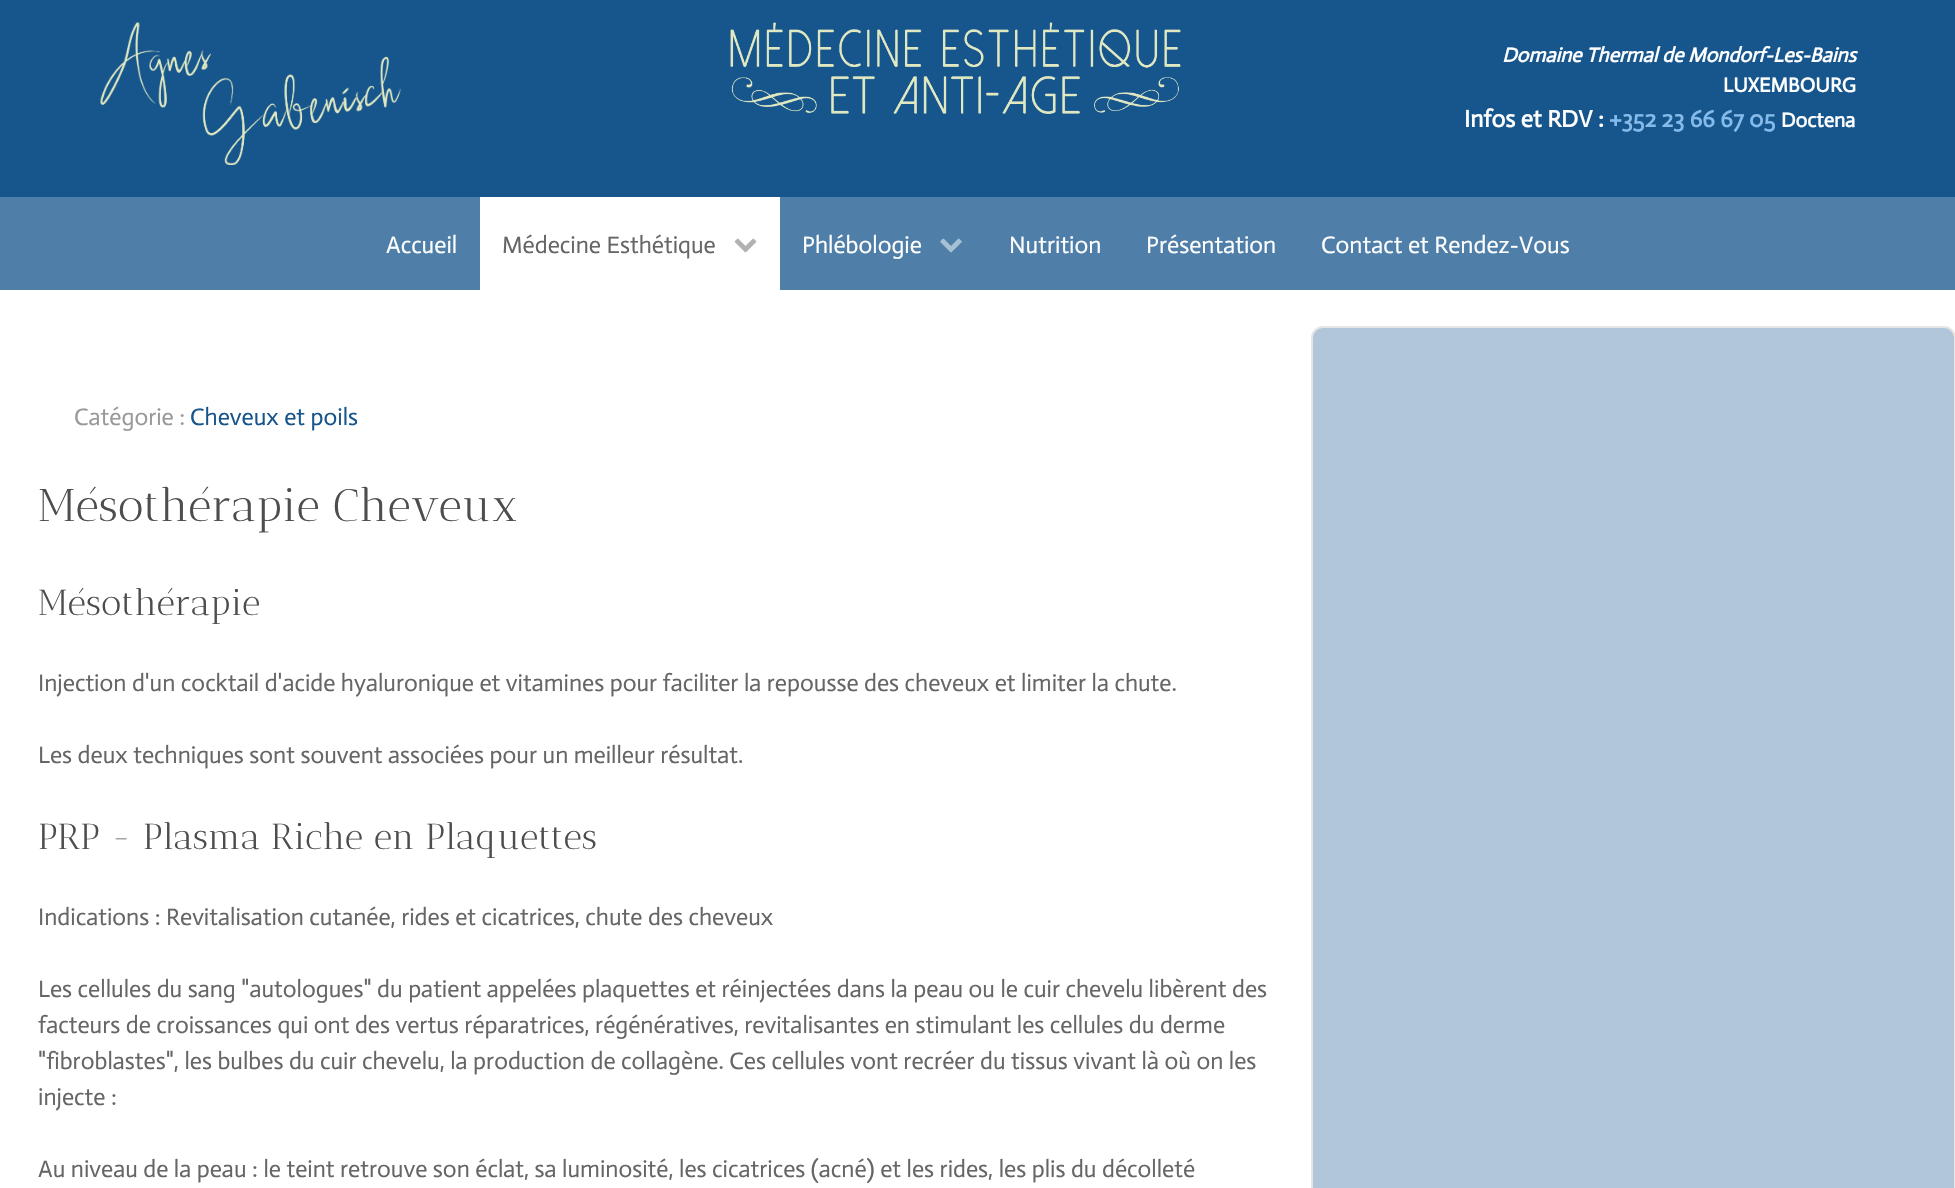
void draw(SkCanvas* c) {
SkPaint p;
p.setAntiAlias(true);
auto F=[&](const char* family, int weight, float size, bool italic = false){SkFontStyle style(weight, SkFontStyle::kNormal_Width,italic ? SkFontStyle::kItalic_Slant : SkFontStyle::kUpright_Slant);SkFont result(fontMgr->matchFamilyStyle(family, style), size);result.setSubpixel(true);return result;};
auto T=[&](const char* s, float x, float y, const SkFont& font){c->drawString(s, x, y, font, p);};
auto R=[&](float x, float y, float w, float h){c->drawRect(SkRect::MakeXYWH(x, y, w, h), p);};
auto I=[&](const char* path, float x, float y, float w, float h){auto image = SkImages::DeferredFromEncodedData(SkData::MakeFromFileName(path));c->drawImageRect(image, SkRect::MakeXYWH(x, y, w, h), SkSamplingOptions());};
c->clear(0xffffffff);
p.setColor(0xff17568c);
R(0,0,1955,197);
I("1.png",100,22,301,143);
I("2.png",730,22,451,92);
auto f1 = F("Actor",700,20.4,true);
p.setColor(0xffffffff);
T("Domaine Thermal de Mondorf-Les-Bains",1502,62,f1);
auto f2 = F("Actor",700,20.4);
T("LUXEMBOURG",1723,92,f2);
auto f3 = F("Actor",700,24);
T("Infos et RDV :",1464,127,f3);
p.setColor(0xff84bbeb);
T("+352 23 66 67 05",1609,127,f3);
p.setColor(0xffffffff);
T("Doctena",1781,127,f2);
p.setColor(0xff4f7fa8);
R(0,197,1955,93);
auto f4 = F("Actor",400,24);
p.setColor(0xffffffff);
T("Accueil",386,253,f4);
R(480,197,300,93);
p.setColor(0xff666666);
T("Médecine Esthétique",502,253,f4);
I("3.png",734,238,23,15);
p.setColor(0xffffffff);
T("Phlébologie",802,253,f4);
I("4.png",940,238,22,15);
T("Nutrition",1009,253,f4);
T("Présentation",1146,253,f4);
T("Contact et Rendez-Vous",1321,253,f4);
p.setColor(0xff999999);
T("Catégorie :",74,425,f4);
p.setColor(0xff17568c);
T("Cheveux et poils",190,425,f4);
auto f5 = F("Antic Didone",400,45.6);
p.setColor(0xff4d4d4d);
T("Mésothérapie Cheveux",38,521,f5);
auto f6 = F("Antic Didone",400,36);
T("Mésothérapie",38,615,f6);
p.setColor(0xff666666);
T("Injection d'un cocktail d'acide hyaluronique et vitamines pour faciliter la repousse des cheveux et limiter la chute.",38,691,f4);
T("Les deux techniques sont souvent associées pour un meilleur résultat.",38,763,f4);
p.setColor(0xff4d4d4d);
T("PRP - Plasma Riche en Plaquettes",38,849,f6);
p.setColor(0xff666666);
T("Indications : Revitalisation cutanée, rides et cicatrices, chute des cheveux",38,925,f4);
T("Les cellules du sang \"autologues\" du patient appelées plaquettes et réinjectées dans la peau ou le cuir chevelu libèrent des",38,997,f4);
T("facteurs de croissances qui ont des vertus réparatrices, régénératives, revitalisantes en stimulant les cellules du derme",38,1033,f4);
T("\"fibroblastes\", les bulbes du cuir chevelu, la production de collagène. Ces cellules vont recréer du tissus vivant là où on les",38,1069,f4);
T("injecte :",38,1105,f4);
T("Au niveau de la peau : le teint retrouve son éclat, sa luminosité, les cicatrices (acné) et les rides, les plis du décolleté",38,1177,f4);
p.setColor(0xffb1c6d8);
c->drawRoundRect(SkRect::MakeXYWH(1312,327,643,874),11,11,p);
p.setStroke(true);
p.setStrokeWidth(2);
p.setColor(0xffe5e5e5);
c->drawRoundRect(SkRect::MakeXYWH(1312,327,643,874),11,11,p);
}
